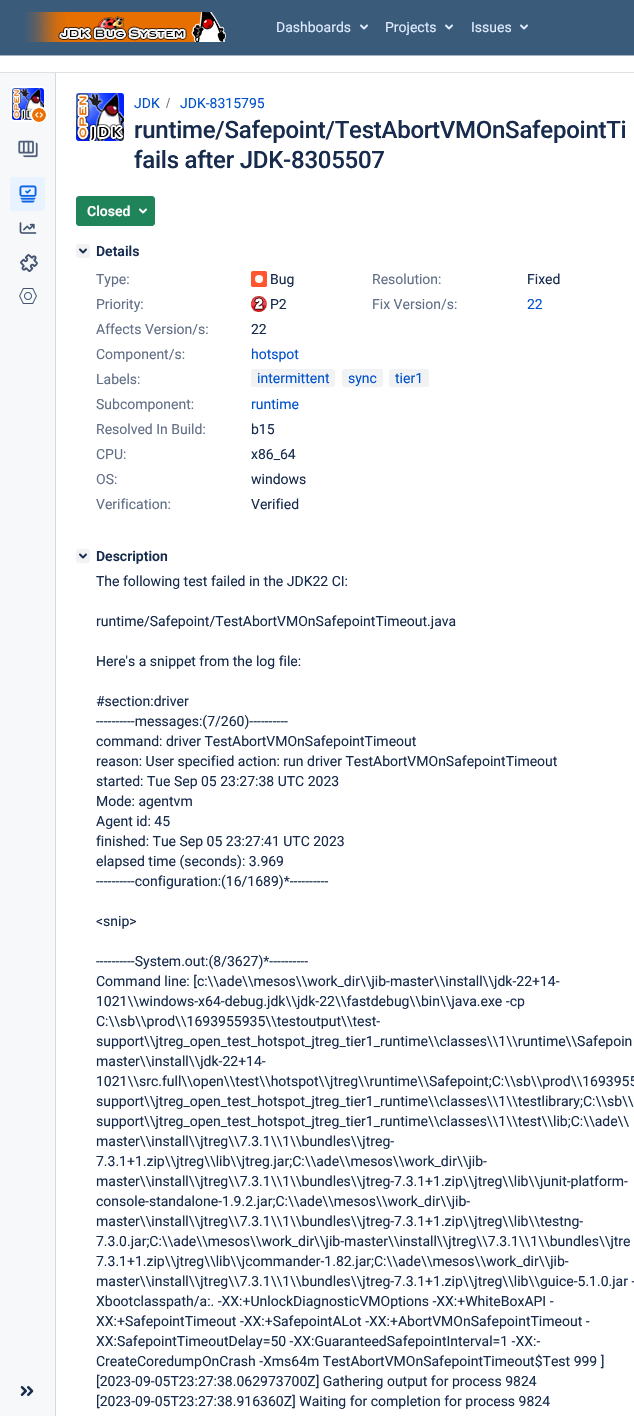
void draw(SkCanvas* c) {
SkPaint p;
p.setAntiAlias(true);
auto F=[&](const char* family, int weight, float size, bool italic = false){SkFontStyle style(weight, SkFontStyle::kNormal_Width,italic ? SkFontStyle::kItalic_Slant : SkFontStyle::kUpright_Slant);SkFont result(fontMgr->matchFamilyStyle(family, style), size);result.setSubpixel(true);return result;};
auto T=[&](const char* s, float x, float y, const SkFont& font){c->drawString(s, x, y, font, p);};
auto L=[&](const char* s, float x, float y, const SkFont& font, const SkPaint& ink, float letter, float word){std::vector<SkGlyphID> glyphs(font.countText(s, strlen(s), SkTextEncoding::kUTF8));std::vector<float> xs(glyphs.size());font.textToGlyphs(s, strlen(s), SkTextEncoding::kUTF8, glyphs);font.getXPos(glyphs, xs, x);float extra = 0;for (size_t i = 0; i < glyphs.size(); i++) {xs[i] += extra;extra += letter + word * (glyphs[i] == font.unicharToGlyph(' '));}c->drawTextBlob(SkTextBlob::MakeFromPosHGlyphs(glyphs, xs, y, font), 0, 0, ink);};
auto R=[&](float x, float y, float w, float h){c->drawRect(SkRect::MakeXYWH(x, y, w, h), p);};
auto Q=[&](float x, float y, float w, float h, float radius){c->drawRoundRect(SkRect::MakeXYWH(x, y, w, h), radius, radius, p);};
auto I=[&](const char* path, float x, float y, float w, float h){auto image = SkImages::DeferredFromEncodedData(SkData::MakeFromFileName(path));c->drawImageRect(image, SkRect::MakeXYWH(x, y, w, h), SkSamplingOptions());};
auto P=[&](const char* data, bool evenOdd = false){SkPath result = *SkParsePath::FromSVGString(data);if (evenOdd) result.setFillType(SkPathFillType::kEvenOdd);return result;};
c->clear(0xffffffff);
p.setColor(0xff3b5b7b);
R(0,0,634,55);
p.setColor(0xffa4b3c4);
R(0,55,634,1);
I("1.png",25,12,201,30);
auto f1 = F("Roboto",400,14);
p.setColor(0xffdeebff);
T("Dashboards",276,32,f1);
I("2.png",360,24,8,6);
T("Projects",385,32,f1);
I("2.png",445,24,8,6);
T("Issues",471,32,f1);
I("2.png",520,24,8,6);
p.setColor(0xffdde0e5);
R(0,72,634,1);
p.setColor(0xfff7f8f9);
R(0,73,55,1343);
p.setColor(0xffd6d9df);
R(55,73,1,1343);
p.setStroke(true);
p.setStrokeWidth(2);
p.setColor(0xffffffff);
c->drawRoundRect(SkRect::MakeXYWH(11,87,34,34),4,4,p);
I("3.png",12,88,32,32);
p.setStroke(false);
c->drawCircle(39,115,9,p);
I("4.png",32,108,14,14);
I("5.png",18,140,20,18);
p.setColor(0xffe9f2ff);
Q(10,177,35,34,3);
I("6.png",19,185,18,18);
I("7.png",19,222,18,12);
I("8.png",20,254,18,18);
I("9.png",19,288,18,16);
I("10.png",20,1386,14,10);
I("11.png",76,93,48,48);
p.setColor(0xff0052cc);
T("JDK",134,108,f1);
p.setColor(0xff707070);
c->drawPath(P("M167 108l3-10h-1l-3 10z"),p);
p.setColor(0xff0052cc);
T("JDK-8315795",180,108,f1);
auto f2 = F("Roboto",500,24);
p.setColor(0xff172b4d);
L("runtime/Safepoint/TestAbortVMOnSafepointTi",134,138,f2,p,-.25,0);
L("fails after JDK-8305507",134,168,f2,p,-.25,0);
p.setColor(0xff1f845a);
c->drawRoundRect(SkRect::MakeXYWH(76.5,196.5,78,29),2.5,2.5,p);
p.setStroke(true);
p.setStrokeWidth(1);
c->drawRoundRect(SkRect::MakeXYWH(76.5,196.5,78,29),2.5,2.5,p);
auto f3 = F("Roboto",600,14);
p.setStroke(false);
p.setColor(0xffffffff);
T("Closed",87,216,f3);
I("12.png",139,208,8,6);
p.setColor(0xfff0f2f4);
Q(76,244,14,14,3);
I("13.png",79,248,8,6);
p.setColor(0xff172b4d);
T("Details",96,256,f3);
p.setColor(0xff626f86);
T("Type:",96,284,f1);
I("14.png",251,271,16,16);
p.setColor(0xff172b4d);
T("Bug",270,284,f1);
p.setColor(0xff626f86);
T("Resolution:",372,284,f1);
p.setColor(0xff172b4d);
T("Fixed",527,284,f1);
p.setColor(0xff626f86);
T("Priority:",96,309,f1);
I("15.png",251,296,16,16);
p.setColor(0xff172b4d);
T("P2",270,309,f1);
p.setColor(0xff626f86);
T("Fix Version/s:",372,309,f1);
p.setColor(0xff0052cc);
T("22",527,309,f1);
p.setColor(0xff626f86);
T("Affects Version/s:",96,334,f1);
p.setColor(0xff172b4d);
T("22",251,334,f1);
p.setColor(0xff626f86);
T("Component/s:",96,359,f1);
p.setColor(0xff0052cc);
T("hotspot",251,359,f1);
p.setColor(0xff626f86);
T("Labels:",96,384,f1);
p.setColor(0xfff0f2f4);
Q(251,369,84,18,3);
p.setColor(0xff0052cc);
T("intermittent",257,383,f1);
p.setColor(0xfff0f2f4);
Q(342,369,41,18,3);
p.setColor(0xff0052cc);
T("sync",348,383,f1);
p.setColor(0xfff0f2f4);
Q(389,369,40,18,3);
p.setColor(0xff0052cc);
T("tier1",395,383,f1);
p.setColor(0xff626f86);
T("Subcomponent:",96,409,f1);
p.setColor(0xff0052cc);
T("runtime",251,409,f1);
p.setColor(0xff626f86);
T("Resolved In Build:",96,434,f1);
p.setColor(0xff172b4d);
T("b15",251,434,f1);
p.setColor(0xff626f86);
T("CPU:",96,459,f1);
p.setColor(0xff172b4d);
T("x86_64",251,459,f1);
p.setColor(0xff626f86);
T("OS:",96,484,f1);
p.setColor(0xff172b4d);
T("windows",251,484,f1);
p.setColor(0xff626f86);
T("Verification:",96,509,f1);
p.setColor(0xff172b4d);
T("Verified",251,509,f1);
p.setColor(0xfff0f2f4);
Q(76,549,14,14,3);
I("13.png",79,553,8,6);
p.setColor(0xff172b4d);
T("Description",96,561,f3);
T("The following test failed in the JDK22 CI:",96,586,f1);
T("runtime/Safepoint/TestAbortVMOnSafepointTimeout.java",96,626,f1);
T("Here's a snippet from the log file:",96,666,f1);
T("#section:driver",96,706,f1);
T("----------messages:(7/260)----------",96,726,f1);
T("command: driver TestAbortVMOnSafepointTimeout",96,746,f1);
T("reason: User specified action: run driver TestAbortVMOnSafepointTimeout",96,766,f1);
T("started: Tue Sep 05 23:27:38 UTC 2023",96,786,f1);
T("Mode: agentvm",96,806,f1);
T("Agent id: 45",96,826,f1);
T("finished: Tue Sep 05 23:27:41 UTC 2023",96,846,f1);
T("elapsed time (seconds): 3.969",96,866,f1);
T("----------configuration:(16/1689)*----------",96,886,f1);
T("<snip>",96,926,f1);
T("----------System.out:(8/3627)*----------",96,966,f1);
T("Command line: [c:\\\\ade\\\\mesos\\\\work_dir\\\\jib-master\\\\install\\\\jdk-22+14-",96,986,f1);
T("1021\\\\windows-x64-debug.jdk\\\\jdk-22\\\\fastdebug\\\\bin\\\\java.exe -cp",96,1006,f1);
T("C:\\\\sb\\\\prod\\\\1693955935\\\\testoutput\\\\test-",96,1026,f1);
T("support\\\\jtreg_open_test_hotspot_jtreg_tier1_runtime\\\\classes\\\\1\\\\runtime\\\\Safepoin",96,1046,f1);
T("master\\\\install\\\\jdk-22+14-",96,1066,f1);
T("1021\\\\src.full\\\\open\\\\test\\\\hotspot\\\\jtreg\\\\runtime\\\\Safepoint;C:\\\\sb\\\\prod\\\\1693955",96,1086,f1);
T("support\\\\jtreg_open_test_hotspot_jtreg_tier1_runtime\\\\classes\\\\1\\\\testlibrary;C:\\\\sb\\\\",96,1106,f1);
T("support\\\\jtreg_open_test_hotspot_jtreg_tier1_runtime\\\\classes\\\\1\\\\test\\\\lib;C:\\\\ade\\\\",96,1126,f1);
T("master\\\\install\\\\jtreg\\\\7.3.1\\\\1\\\\bundles\\\\jtreg-",96,1146,f1);
T("7.3.1+1.zip\\\\jtreg\\\\lib\\\\jtreg.jar;C:\\\\ade\\\\mesos\\\\work_dir\\\\jib-",96,1166,f1);
T("master\\\\install\\\\jtreg\\\\7.3.1\\\\1\\\\bundles\\\\jtreg-7.3.1+1.zip\\\\jtreg\\\\lib\\\\junit-platform-",96,1186,f1);
T("console-standalone-1.9.2.jar;C:\\\\ade\\\\mesos\\\\work_dir\\\\jib-",96,1206,f1);
T("master\\\\install\\\\jtreg\\\\7.3.1\\\\1\\\\bundles\\\\jtreg-7.3.1+1.zip\\\\jtreg\\\\lib\\\\testng-",96,1226,f1);
T("7.3.0.jar;C:\\\\ade\\\\mesos\\\\work_dir\\\\jib-master\\\\install\\\\jtreg\\\\7.3.1\\\\1\\\\bundles\\\\jtre",96,1246,f1);
T("7.3.1+1.zip\\\\jtreg\\\\lib\\\\jcommander-1.82.jar;C:\\\\ade\\\\mesos\\\\work_dir\\\\jib-",96,1266,f1);
T("master\\\\install\\\\jtreg\\\\7.3.1\\\\1\\\\bundles\\\\jtreg-7.3.1+1.zip\\\\jtreg\\\\lib\\\\guice-5.1.0.jar -",96,1286,f1);
T("Xbootclasspath/a:. -XX:+UnlockDiagnosticVMOptions -XX:+WhiteBoxAPI -",96,1306,f1);
T("XX:+SafepointTimeout -XX:+SafepointALot -XX:+AbortVMOnSafepointTimeout -",96,1326,f1);
T("XX:SafepointTimeoutDelay=50 -XX:GuaranteedSafepointInterval=1 -XX:-",96,1346,f1);
T("CreateCoredumpOnCrash -Xms64m TestAbortVMOnSafepointTimeout$Test 999 ]",96,1366,f1);
T("[2023-09-05T23:27:38.062973700Z] Gathering output for process 9824",96,1386,f1);
T("[2023-09-05T23:27:38.916360Z] Waiting for completion for process 9824",96,1406,f1);
}
